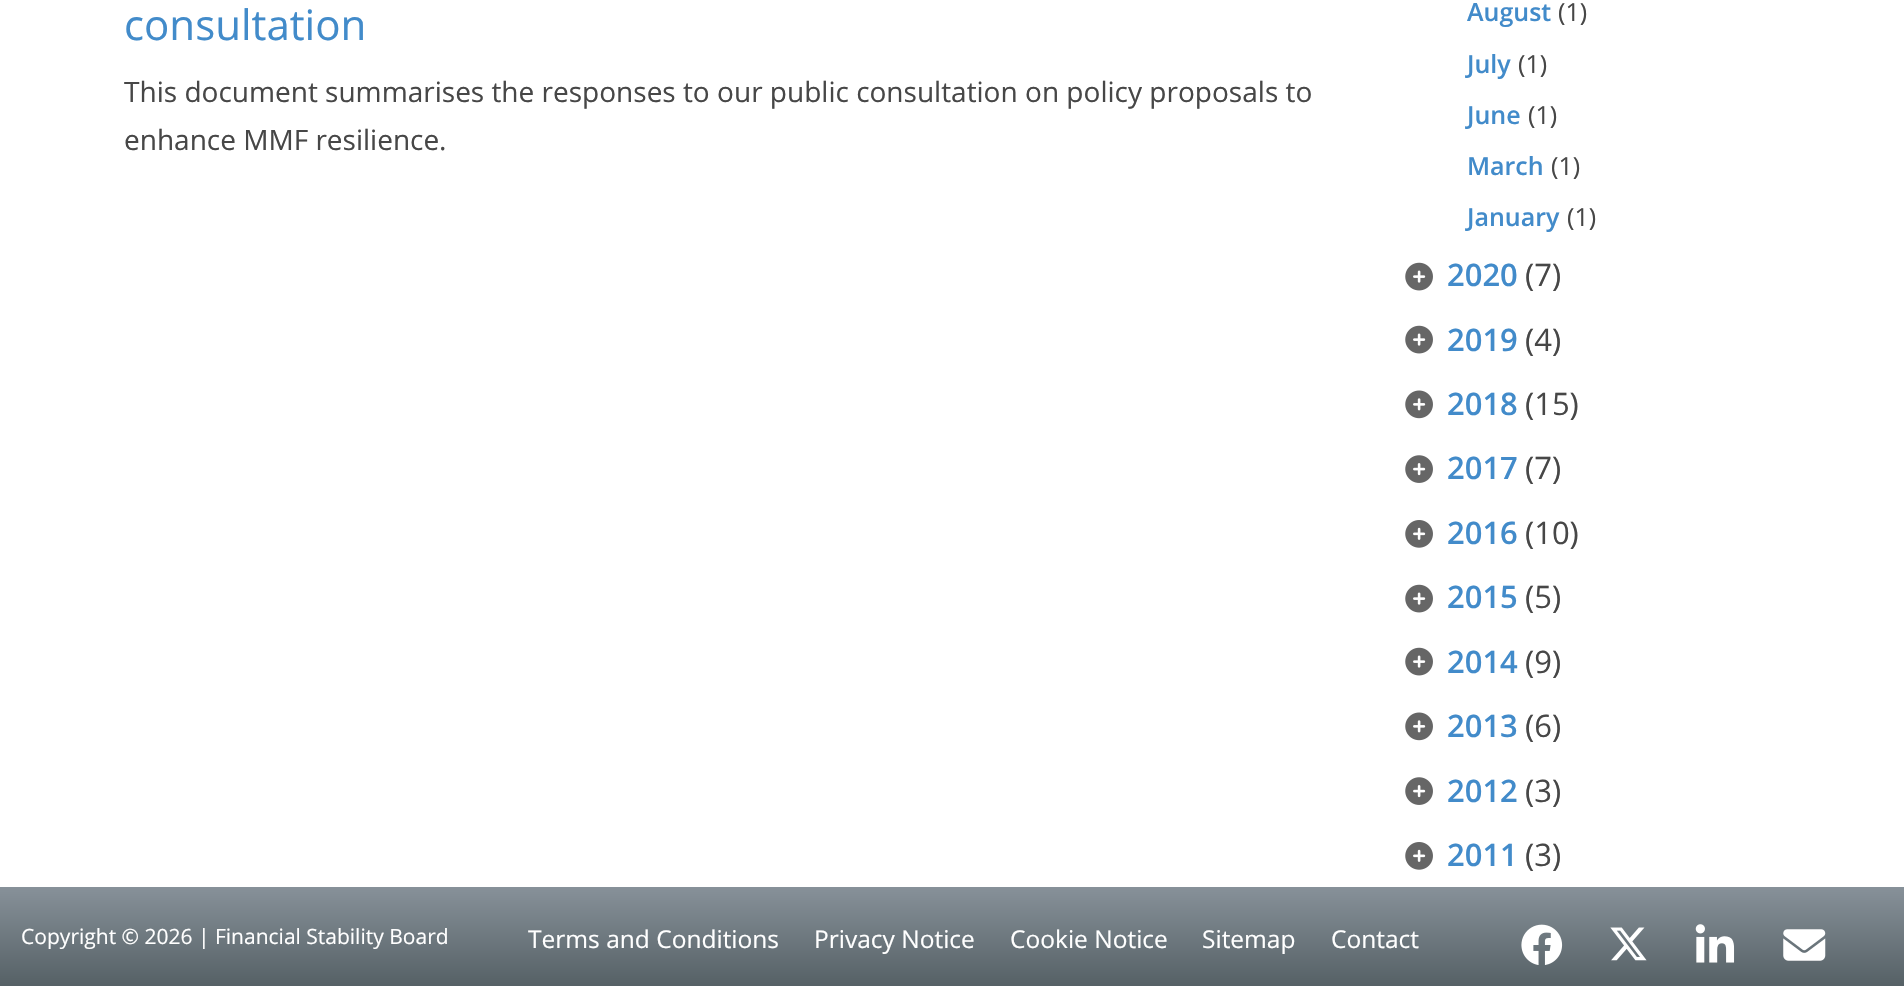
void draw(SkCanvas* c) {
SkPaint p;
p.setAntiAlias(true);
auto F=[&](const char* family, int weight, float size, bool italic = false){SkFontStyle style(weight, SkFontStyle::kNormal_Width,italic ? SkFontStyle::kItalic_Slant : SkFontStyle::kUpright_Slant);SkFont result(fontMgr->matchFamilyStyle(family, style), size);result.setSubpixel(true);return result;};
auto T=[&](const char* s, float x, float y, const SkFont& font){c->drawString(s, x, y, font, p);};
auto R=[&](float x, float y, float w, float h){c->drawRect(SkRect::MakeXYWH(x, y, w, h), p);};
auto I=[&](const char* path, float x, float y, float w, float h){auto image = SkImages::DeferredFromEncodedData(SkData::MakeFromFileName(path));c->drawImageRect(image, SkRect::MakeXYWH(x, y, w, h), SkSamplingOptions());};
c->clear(0xffffffff);
auto f1 = F("Open Sans",400,42);
p.setColor(0xff428bca);
T("consultation",124,40,f1);
auto f2 = F("Open Sans",400,28);
p.setColor(0xff474747);
T("This document summarises the responses to our public consultation on policy proposals to",124,102,f2);
T("enhance MMF resilience.",124,150,f2);
auto f3 = F("Open Sans",600,25);
p.setColor(0xff428bca);
T("August",1467,21,f3);
auto f4 = F("Open Sans",400,25);
p.setColor(0xff474747);
T("(1)",1558,21,f4);
p.setColor(0xff428bca);
T("July",1467,73,f3);
p.setColor(0xff474747);
T("(1)",1518,73,f4);
p.setColor(0xff428bca);
T("June",1467,124,f3);
p.setColor(0xff474747);
T("(1)",1528,124,f4);
p.setColor(0xff428bca);
T("March",1467,175,f3);
p.setColor(0xff474747);
T("(1)",1551,175,f4);
p.setColor(0xff428bca);
T("January",1467,226,f3);
p.setColor(0xff474747);
T("(1)",1567,226,f4);
I("1.png",1405,262,28,29);
auto f5 = F("Open Sans",600,31);
p.setColor(0xff428bca);
T("2020",1447,286,f5);
auto f6 = F("Open Sans",400,31);
p.setColor(0xff474747);
T("(7)",1525,286,f6);
I("1.png",1405,325,28,29);
p.setColor(0xff428bca);
T("2019",1447,351,f5);
p.setColor(0xff474747);
T("(4)",1525,351,f6);
I("2.png",1405,390,28,29);
p.setColor(0xff428bca);
T("2018",1447,415,f5);
p.setColor(0xff474747);
T("(15)",1525,415,f6);
I("3.png",1405,455,28,28);
p.setColor(0xff428bca);
T("2017",1447,479,f5);
p.setColor(0xff474747);
T("(7)",1525,479,f6);
I("4.png",1405,520,28,28);
p.setColor(0xff428bca);
T("2016",1447,544,f5);
p.setColor(0xff474747);
T("(10)",1525,544,f6);
I("1.png",1405,584,28,29);
p.setColor(0xff428bca);
T("2015",1447,608,f5);
p.setColor(0xff474747);
T("(5)",1525,608,f6);
I("1.png",1405,647,28,29);
p.setColor(0xff428bca);
T("2014",1447,673,f5);
p.setColor(0xff474747);
T("(9)",1525,673,f6);
I("2.png",1405,712,28,29);
p.setColor(0xff428bca);
T("2013",1447,737,f5);
p.setColor(0xff474747);
T("(6)",1525,737,f6);
I("3.png",1405,777,28,28);
p.setColor(0xff428bca);
T("2012",1447,802,f5);
p.setColor(0xff474747);
T("(3)",1525,802,f6);
I("4.png",1405,842,28,28);
p.setColor(0xff428bca);
T("2011",1447,866,f5);
p.setColor(0xff474747);
T("(3)",1525,866,f6);
{
const SkColor colors[] = {0xff879199,0xff556065};
const float stops[] = {0,1};
const SkPoint ends[] = {{952,887}, {952,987}};
p.setShader(SkGradientShader::MakeLinear(ends, colors, stops, 2, SkTileMode::kClamp));
p.setAlpha(255);
}
R(0,887,1904,99);
auto f7 = F("Open Sans",400,21);
p.setShader(nullptr);
p.setColor(0xffffffff);
T("Copyright © 2026 | Financial Stability Board",21,944,f7);
auto f8 = F("Open Sans",400,24.5);
T("Terms and Conditions",528,948,f8);
T("Privacy Notice",814,948,f8);
T("Cookie Notice",1010,948,f8);
T("Sitemap",1202,948,f8);
T("Contact",1331,948,f8);
I("5.png",1521,924,42,41);
I("6.png",1610,927,37,34);
I("7.png",1695,924,40,39);
I("8.png",1783,929,43,32);
}
